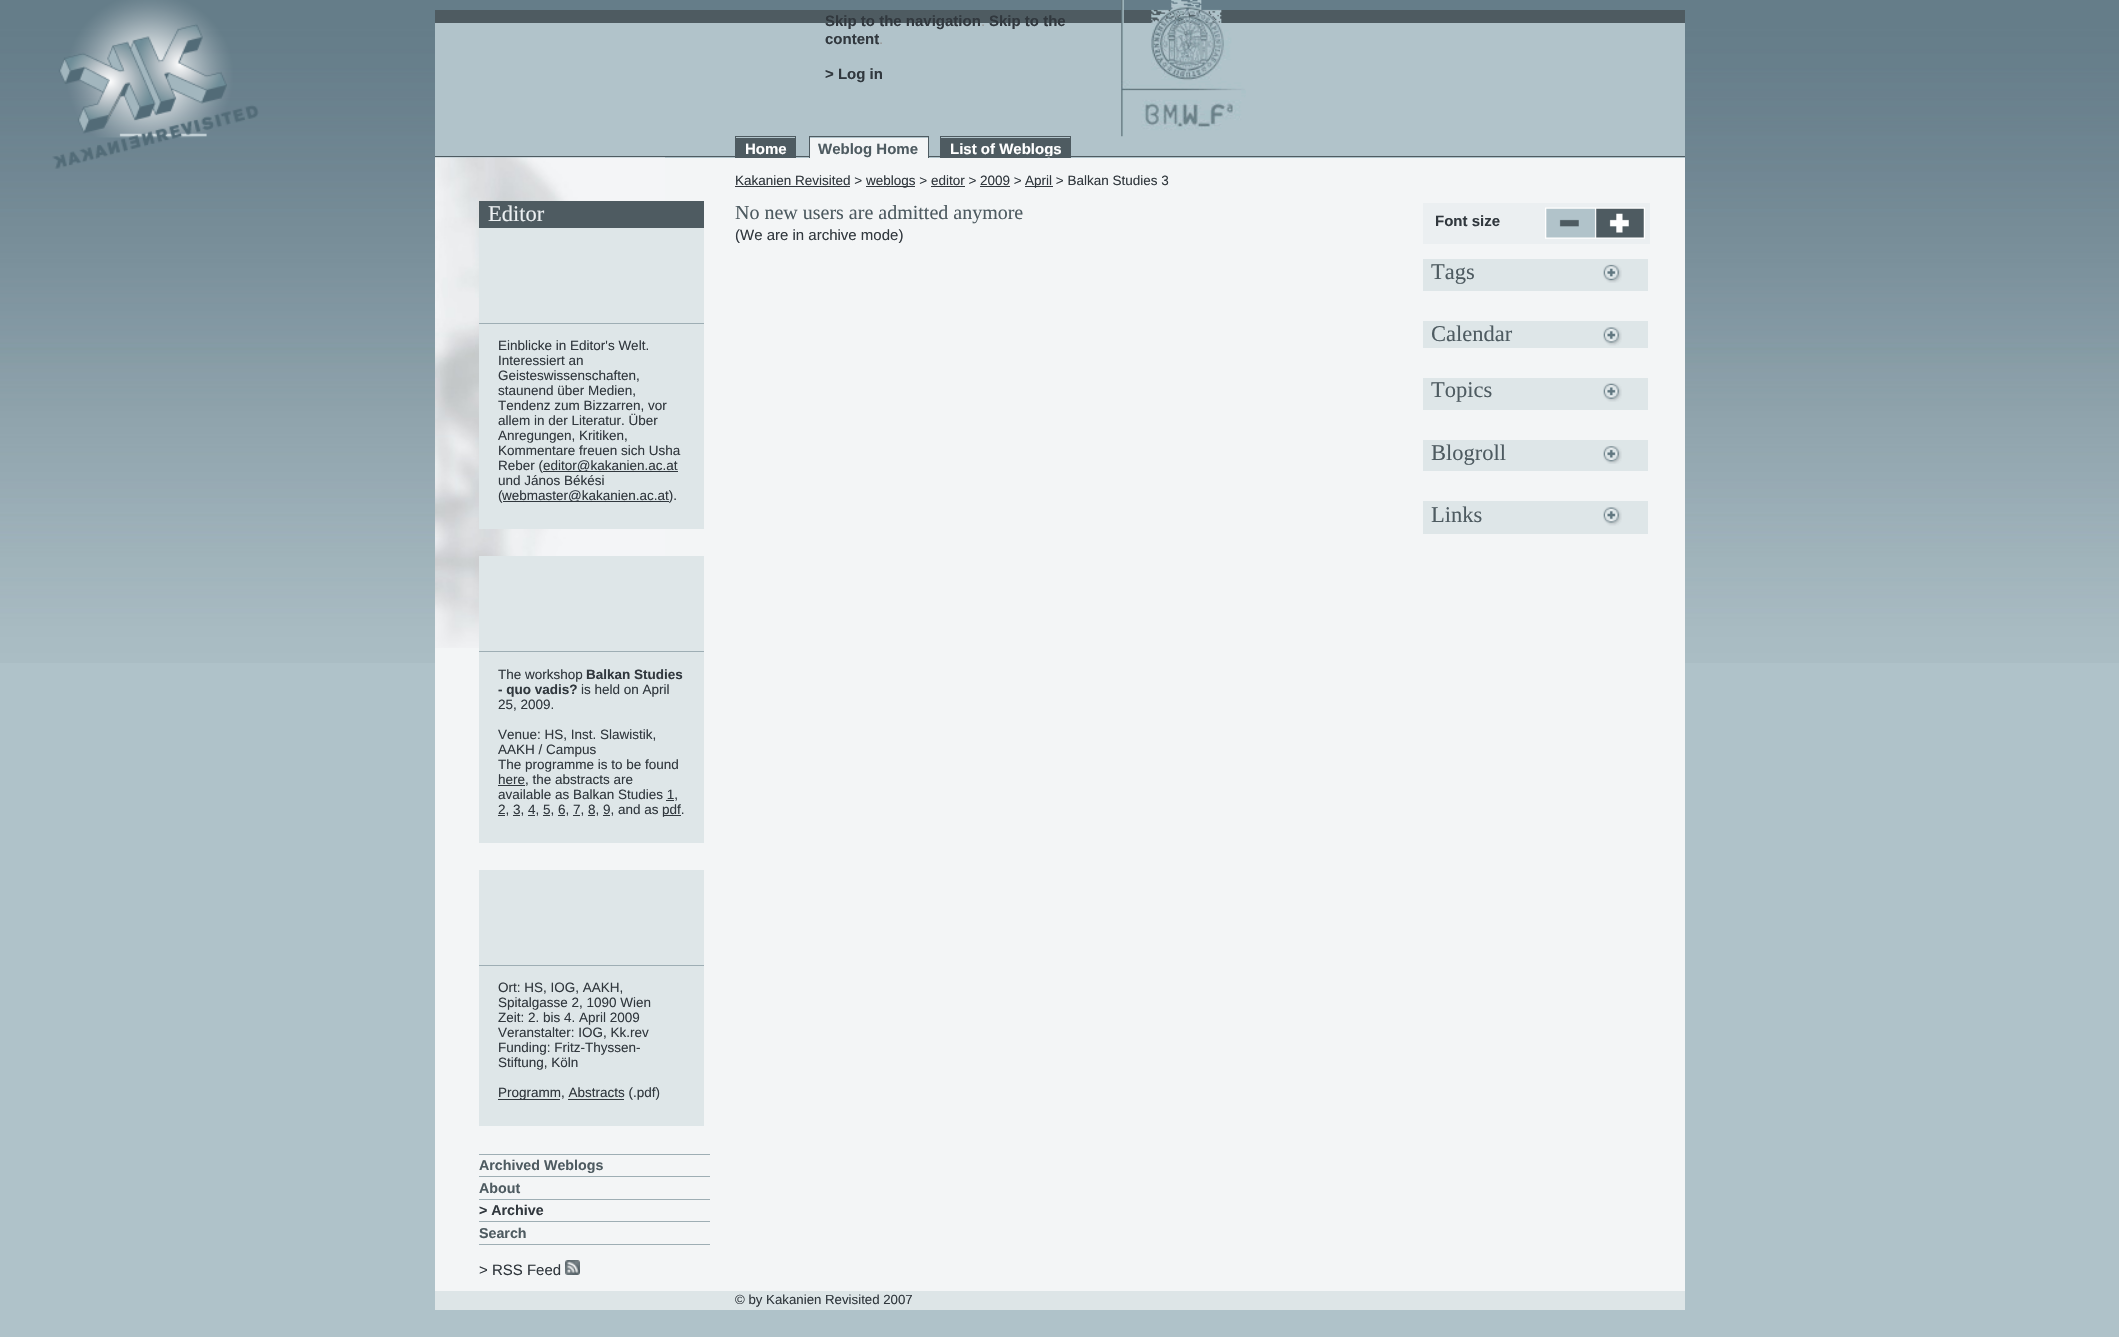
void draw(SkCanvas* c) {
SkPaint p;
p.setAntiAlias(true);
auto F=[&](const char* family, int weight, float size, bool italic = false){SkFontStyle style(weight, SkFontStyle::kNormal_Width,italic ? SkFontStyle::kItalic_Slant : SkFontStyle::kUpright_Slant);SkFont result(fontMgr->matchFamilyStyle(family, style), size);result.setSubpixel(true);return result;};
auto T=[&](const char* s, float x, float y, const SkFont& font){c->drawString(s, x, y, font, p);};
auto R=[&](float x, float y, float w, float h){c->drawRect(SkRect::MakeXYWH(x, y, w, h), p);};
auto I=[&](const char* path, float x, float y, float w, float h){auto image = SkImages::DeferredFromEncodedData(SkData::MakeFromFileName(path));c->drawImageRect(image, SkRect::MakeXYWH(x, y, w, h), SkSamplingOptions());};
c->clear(0xffafc2c9);
I("1.png",0,0,2119,663);
p.setColor(0xffb1c3ca);
R(435,23,1250,135);
p.setColor(0xff4e5b61);
R(435,10,1250,13);
I("2.png",52,0,207,169);
auto f1 = F("Liberation Sans",700,15);
p.setColor(0xff31383e);
T("Skip to the navigation",825,26,f1);
auto f2 = F("Liberation Sans",400,15);
p.setColor(0xff999999);
T(".",981,26,f2);
p.setColor(0xff31383e);
T("Skip to the",989,26,f1);
T("content",825,44,f1);
p.setColor(0xff999999);
T(".",879,44,f2);
p.setColor(0xff31383e);
T("> Log in",825,79,f1);
I("3.png",1121,0,125,137);
p.setColor(0xff4e5b61);
R(736,138,59,20);
p.setColor(0xffffffff);
T("Home",745,154,f1);
p.setColor(0xff4e5b61);
R(735,136,61,1);
R(795,136,1,22);
R(735,136,1,22);
R(941,138,129,20);
p.setColor(0xffffffff);
T("List of Weblogs",950,154,f1);
p.setColor(0xff4e5b61);
R(940,136,131,1);
R(1070,136,1,22);
R(940,136,1,22);
R(435,156,1250,1);
p.setColor(0xfff3f5f6);
R(810,138,118,20);
p.setColor(0xff4e5b61);
T("Weblog Home",818,154,f1);
R(809,136,120,1);
R(928,136,1,22);
R(809,136,1,22);
p.setColor(0xfff3f5f6);
R(435,158,1250,1133);
I("4.png",435,157,230,491);
p.setColor(0xff4e5b61);
R(479,201,225,27);
auto f3 = F("Liberation Serif",400,22.5);
p.setColor(0xffebeff1);
T("Editor",488,221,f3);
p.setColor(0xffdee6e8);
R(479,228,225,95);
R(479,324,225,205);
p.setColor(0xff9eaeb4);
R(479,323,225,1);
auto f4 = F("Liberation Sans",400,13.5);
p.setColor(0xff31383e);
T("Einblicke in Editor's Welt.",498,350,f4);
T("Interessiert an",498,365,f4);
T("Geisteswissenschaften,",498,380,f4);
T("staunend über Medien,",498,395,f4);
T("Tendenz zum Bizzarren, vor",498,410,f4);
T("allem in der Literatur. Über",498,425,f4);
T("Anregungen, Kritiken,",498,440,f4);
T("Kommentare freuen sich Usha",498,455,f4);
T("Reber (",498,470,f4);
R(543,471,135,1);
T("editor@kakanien.ac.at",543,470,f4);
T("und János Békési",498,485,f4);
T("(",498,500,f4);
R(503,501,166,1);
T("webmaster@kakanien.ac.at).",502,500,f4);
p.setColor(0xffdee6e8);
R(479,556,225,95);
R(479,652,225,191);
p.setColor(0xff9eaeb4);
R(479,651,225,1);
p.setColor(0xff31383e);
T("The workshop",498,679,f4);
auto f5 = F("Liberation Sans",700,13.5);
T("Balkan Studies",586,679,f5);
T("- quo vadis?",498,694,f5);
T("is held on April",581,694,f4);
T("25, 2009.",498,709,f4);
T("Venue: HS, Inst. Slawistik,",498,739,f4);
T("AAKH / Campus",498,754,f4);
T("The programme is to be found",498,769,f4);
R(498,785,27,1);
T("here, the abstracts are",498,784,f4);
T("available as Balkan Studies 1,",498,799,f4);
R(666,800,8,1);
R(498,815,7,1);
T("2, 3, 4, 5, 6, 7, 8, 9, and as",498,814,f4);
R(663,815,18,1);
T("pdf.",662,814,f4);
R(513,815,7,1);
R(528,815,7,1);
R(543,815,7,1);
R(558,815,7,1);
R(573,815,7,1);
R(588,815,7,1);
R(603,815,7,1);
p.setColor(0xffdee6e8);
R(479,870,225,95);
R(479,966,225,160);
p.setColor(0xff9eaeb4);
R(479,965,225,1);
p.setColor(0xff31383e);
T("Ort: HS, IOG, AAKH,",498,992,f4);
T("Spitalgasse 2, 1090 Wien",498,1007,f4);
T("Zeit: 2. bis 4. April 2009",498,1022,f4);
T("Veranstalter: IOG, Kk.rev",498,1037,f4);
T("Funding: Fritz-Thyssen-",498,1052,f4);
T("Stiftung, Köln",498,1067,f4);
R(498,1099,62,1);
T("Programm, Abstracts (.pdf)",498,1097,f4);
R(568,1099,56,1);
p.setColor(0xff9eaeb4);
R(479,1154,231,1);
R(479,1176,231,1);
auto f6 = F("Liberation Sans",700,14.25);
p.setColor(0xff4e5b61);
T("Archived Weblogs",479,1170,f6);
p.setColor(0xff9eaeb4);
R(479,1199,231,1);
p.setColor(0xff4e5b61);
T("About",479,1193,f6);
p.setColor(0xff9eaeb4);
R(479,1221,231,1);
p.setColor(0xff31383e);
T("> Archive",479,1215,f6);
p.setColor(0xff9eaeb4);
R(479,1244,231,1);
p.setColor(0xff4e5b61);
T("Search",479,1238,f6);
p.setColor(0xff31383e);
T("> RSS Feed",479,1275,f2);
I("5.png",565,1260,15,15);
T("Kakanien Revisited >",735,185,f4);
R(735,186,115,1);
R(866,186,49,1);
T("weblogs > editor > 2009 >",866,185,f4);
R(1025,186,28,1);
T("April > Balkan Studies 3",1025,185,f4);
R(931,186,34,1);
R(980,186,30,1);
auto f7 = F("Liberation Serif",400,20);
p.setColor(0xff4e5b61);
T("No new users are admitted anymore",735,219,f7);
p.setColor(0xff31383e);
T("(We are in archive mode)",735,240,f2);
p.setColor(0xffebeff1);
R(1423,203,227,41);
p.setColor(0xff31383e);
T("Font size",1435,226,f1);
I("6.png",1545,207,52,32);
I("7.png",1596,207,49,32);
p.setColor(0xffdee6e8);
R(1423,259,225,32);
p.setColor(0xff4e5b61);
T("Tags",1431,279,f3);
I("8.png",1603,264,19,19);
p.setColor(0xffdee6e8);
R(1423,321,225,27);
p.setColor(0xff4e5b61);
T("Calendar",1431,341,f3);
I("9.png",1603,327,19,19);
p.setColor(0xffdee6e8);
R(1423,378,225,32);
p.setColor(0xff4e5b61);
T("Topics",1431,397,f3);
I("10.png",1603,383,19,19);
p.setColor(0xffdee6e8);
R(1423,440,225,31);
p.setColor(0xff4e5b61);
T("Blogroll",1431,460,f3);
I("11.png",1603,446,19,18);
p.setColor(0xffdee6e8);
R(1423,501,225,33);
p.setColor(0xff4e5b61);
T("Links",1431,522,f3);
I("9.png",1603,507,19,19);
p.setColor(0xffdde5e7);
R(435,1291,1250,19);
auto f8 = F("Liberation Sans",400,13.25);
p.setColor(0xff31383e);
T("© by Kakanien Revisited 2007",735,1304,f8);
}
